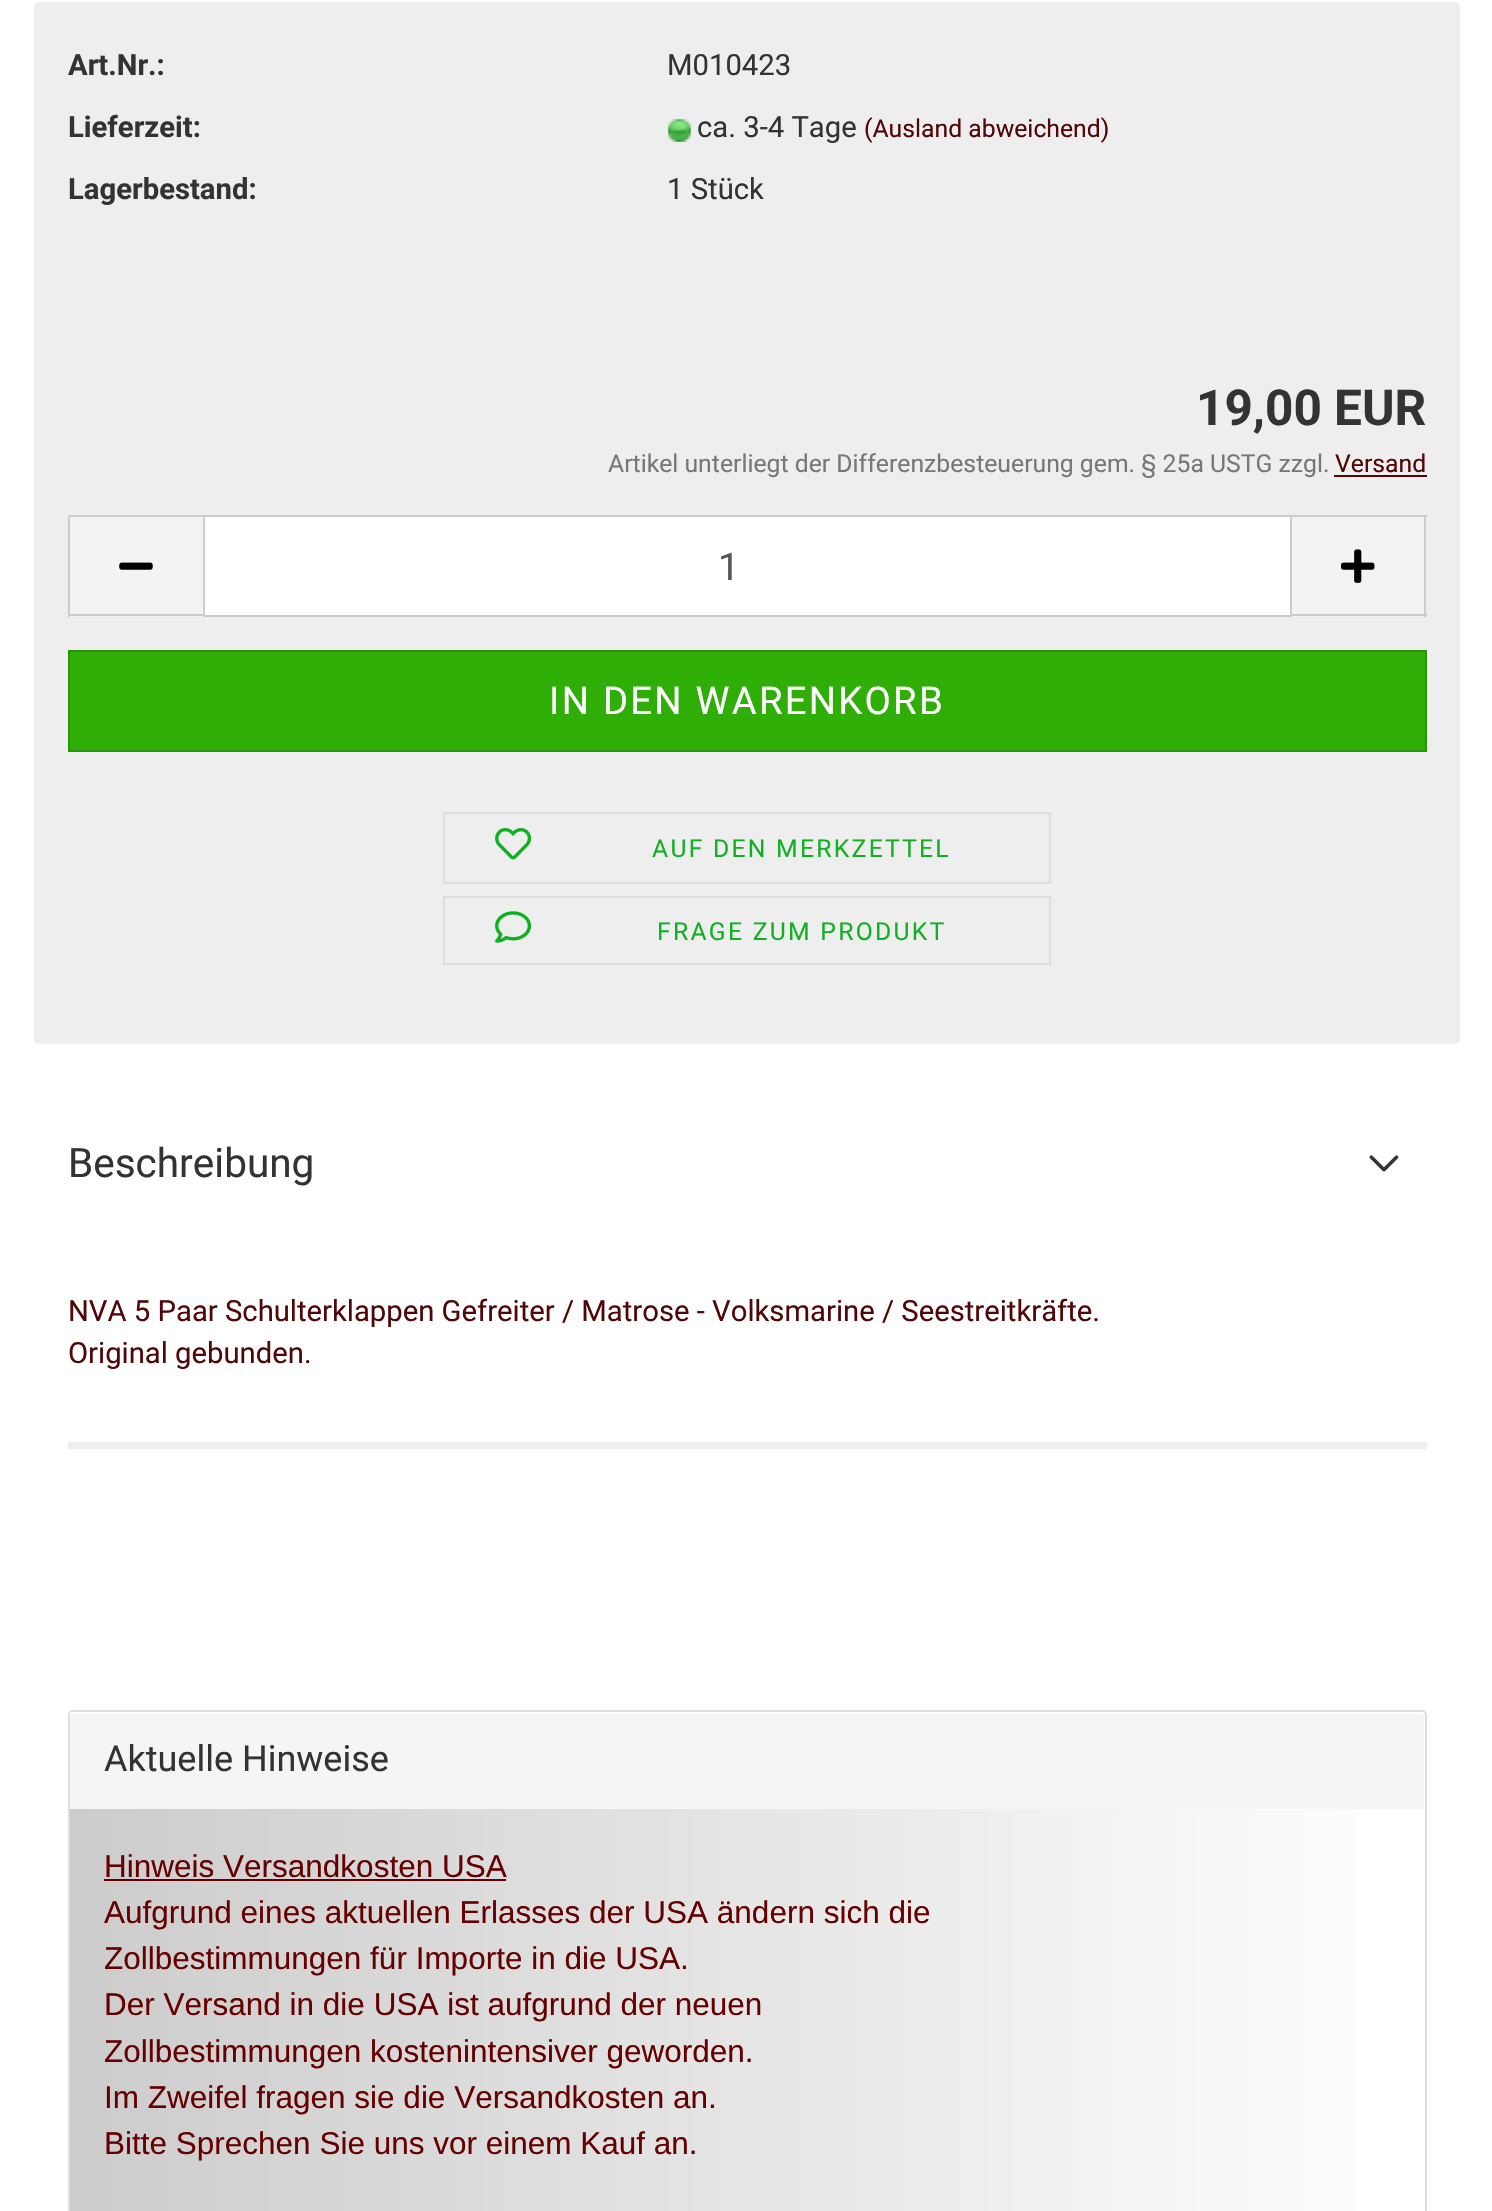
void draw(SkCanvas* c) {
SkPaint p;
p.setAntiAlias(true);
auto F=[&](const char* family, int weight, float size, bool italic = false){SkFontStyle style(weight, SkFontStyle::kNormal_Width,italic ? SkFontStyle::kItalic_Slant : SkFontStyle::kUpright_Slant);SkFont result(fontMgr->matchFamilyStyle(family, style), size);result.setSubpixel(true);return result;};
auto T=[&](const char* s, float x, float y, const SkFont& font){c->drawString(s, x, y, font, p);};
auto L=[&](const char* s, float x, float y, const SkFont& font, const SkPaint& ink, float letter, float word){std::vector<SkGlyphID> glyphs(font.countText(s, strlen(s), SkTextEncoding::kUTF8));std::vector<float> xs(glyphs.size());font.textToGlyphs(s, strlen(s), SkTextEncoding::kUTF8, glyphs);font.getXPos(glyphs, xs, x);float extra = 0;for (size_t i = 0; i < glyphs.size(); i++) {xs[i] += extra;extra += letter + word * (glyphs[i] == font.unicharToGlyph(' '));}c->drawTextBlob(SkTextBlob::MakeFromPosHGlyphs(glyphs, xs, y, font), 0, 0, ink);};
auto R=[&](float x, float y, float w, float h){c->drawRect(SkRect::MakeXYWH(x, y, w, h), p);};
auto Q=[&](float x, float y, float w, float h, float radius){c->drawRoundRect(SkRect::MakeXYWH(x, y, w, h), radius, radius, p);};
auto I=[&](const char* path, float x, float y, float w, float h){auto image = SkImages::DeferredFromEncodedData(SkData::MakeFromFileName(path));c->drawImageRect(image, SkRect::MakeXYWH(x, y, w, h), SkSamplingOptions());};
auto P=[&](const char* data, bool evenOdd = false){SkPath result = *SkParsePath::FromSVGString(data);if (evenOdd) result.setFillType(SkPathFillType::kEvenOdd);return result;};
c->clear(0xffffffff);
p.setColor(0xffeeeeee);
Q(34,2,1426,1042,5);
auto f1 = F("Roboto",700,29.25);
p.setColor(0xff333333);
T("Art.Nr.:",68,75,f1);
auto f2 = F("Roboto",400,29.25);
T("M010423",667,75,f2);
T("Lieferzeit:",68,137,f1);
I("1.png",668,119,23,23);
T("ca. 3-4 Tage",697,137,f2);
auto f3 = F("Roboto",400,24.75);
p.setColor(0xff500707);
T("(Ausland abweichend)",864,137,f3);
p.setColor(0xff333333);
T("Lagerbestand:",68,199,f1);
T("1 Stück",667,199,f2);
auto f4 = F("Roboto",700,49.5);
T("19,00 EUR",1196,425,f4);
p.setColor(0xff777777);
T("Artikel unterliegt der Differenzbesteuerung gem. § 25a USTG zzgl.",608,472,f3);
p.setColor(0xff500707);
T("Versand",1335,472,f3);
R(1334,475,93,2);
p.setColor(0xfff3f3f3);
R(70,517,133,100);
p.setColor(0xffcccccc);
R(68,515,135,2);
R(68,614,135,2);
R(68,515,2,102);
I("2.png",119,562,34,8);
p.setColor(0xffffffff);
c->drawRect(SkRect::MakeXYWH(204,516,1087,100),p);
p.setStroke(true);
p.setStrokeWidth(2);
p.setColor(0xffcccccc);
c->drawRect(SkRect::MakeXYWH(204,516,1087,100),p);
auto f5 = F("Roboto",400,38.25);
p.setStroke(false);
p.setColor(0xff555555);
T("1",718,580,f5);
p.setColor(0xfff3f3f3);
R(1292,517,135,100);
p.setColor(0xffcccccc);
R(1292,515,135,2);
R(1424,515,2,102);
R(1292,614,135,2);
I("3.png",1341,549,34,34);
p.setColor(0xff2eae06);
c->drawRect(SkRect::MakeXYWH(69,651,1357,100),p);
p.setStroke(true);
p.setColor(0xff279505);
c->drawRect(SkRect::MakeXYWH(69,651,1357,100),p);
p.setStroke(false);
p.setColor(0xffffffff);
L("IN DEN WARENKORB",549,714,f5,p,2.25,0);
p.setStroke(true);
p.setColor(0xffdddddd);
c->drawRect(SkRect::MakeXYWH(444,813,606,70),p);
I("4.png",495,828,37,32);
p.setStroke(false);
p.setColor(0xff10b121);
L("AUF DEN MERKZETTEL",652,857,f3,p,2.25,0);
p.setStroke(true);
p.setColor(0xffdddddd);
c->drawRect(SkRect::MakeXYWH(444,897,606,67),p);
I("5.png",495,911,37,32);
p.setStroke(false);
p.setColor(0xff10b121);
L("FRAGE ZUM PRODUKT",657,940,f3,p,2.25,0);
auto f6 = F("Roboto",400,40.5);
p.setColor(0xff333333);
T("Beschreibung",68,1177,f6);
I("6.png",1369,1155,30,17);
p.setColor(0xffeeeeee);
R(68,1442,1359,7);
p.setColor(0xff500707);
T("NVA 5 Paar Schulterklappen Gefreiter / Matrose - Volksmarine / Seestreitkräfte.",68,1321,f2);
T("Original gebunden.",68,1363,f2);
p.setStroke(true);
p.setColor(0xffdddddd);
c->drawRoundRect(SkRect::MakeXYWH(69,1711,1357,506),4,4,p);
p.setStroke(false);
p.setColor(0xfff5f5f5);
c->drawPath(P("M72 1712h1350c1 0 2 1 2 2v95h-1354v-95c0-1 1-2 2-2z"),p);
p.setColor(0xffffffff);
c->drawPath(P("M72 1714h1350c1 0 2 2 2 3c0-2 1-5-2-5h-1350l-2 1v4c0-1 1-3 2-3z"),p);
auto f7 = F("Roboto",400,36);
p.setColor(0xff333333);
T("Aktuelle Hinweise",104,1771,f7);
{
const SkColor colors[] = {0xffcccccc,0xffffffff};
const float stops[] = {0,1};
const SkPoint ends[] = {{70,2105}, {1424,2105}};
p.setShader(SkGradientShader::MakeLinear(ends, colors, stops, 2, SkTileMode::kClamp));
p.setAlpha(255);
}
R(70,1809,1288,402);
auto f8 = F("Liberation Sans",400,31.5);
p.setShader(nullptr);
p.setColor(0xff660000);
T("Hinweis Versandkosten USA",104,1877,f8);
R(104,1879,402,2);
T("Aufgrund eines aktuellen Erlasses der USA ändern sich die",104,1923,f8);
T("Zollbestimmungen für Importe in die USA.",104,1969,f8);
T("Der Versand in die USA ist aufgrund der neuen",104,2015,f8);
T("Zollbestimmungen kostenintensiver geworden.",104,2062,f8);
T("Im Zweifel fragen sie die Versandkosten an.",104,2108,f8);
T("Bitte Sprechen Sie uns vor einem Kauf an.",104,2154,f8);
}
